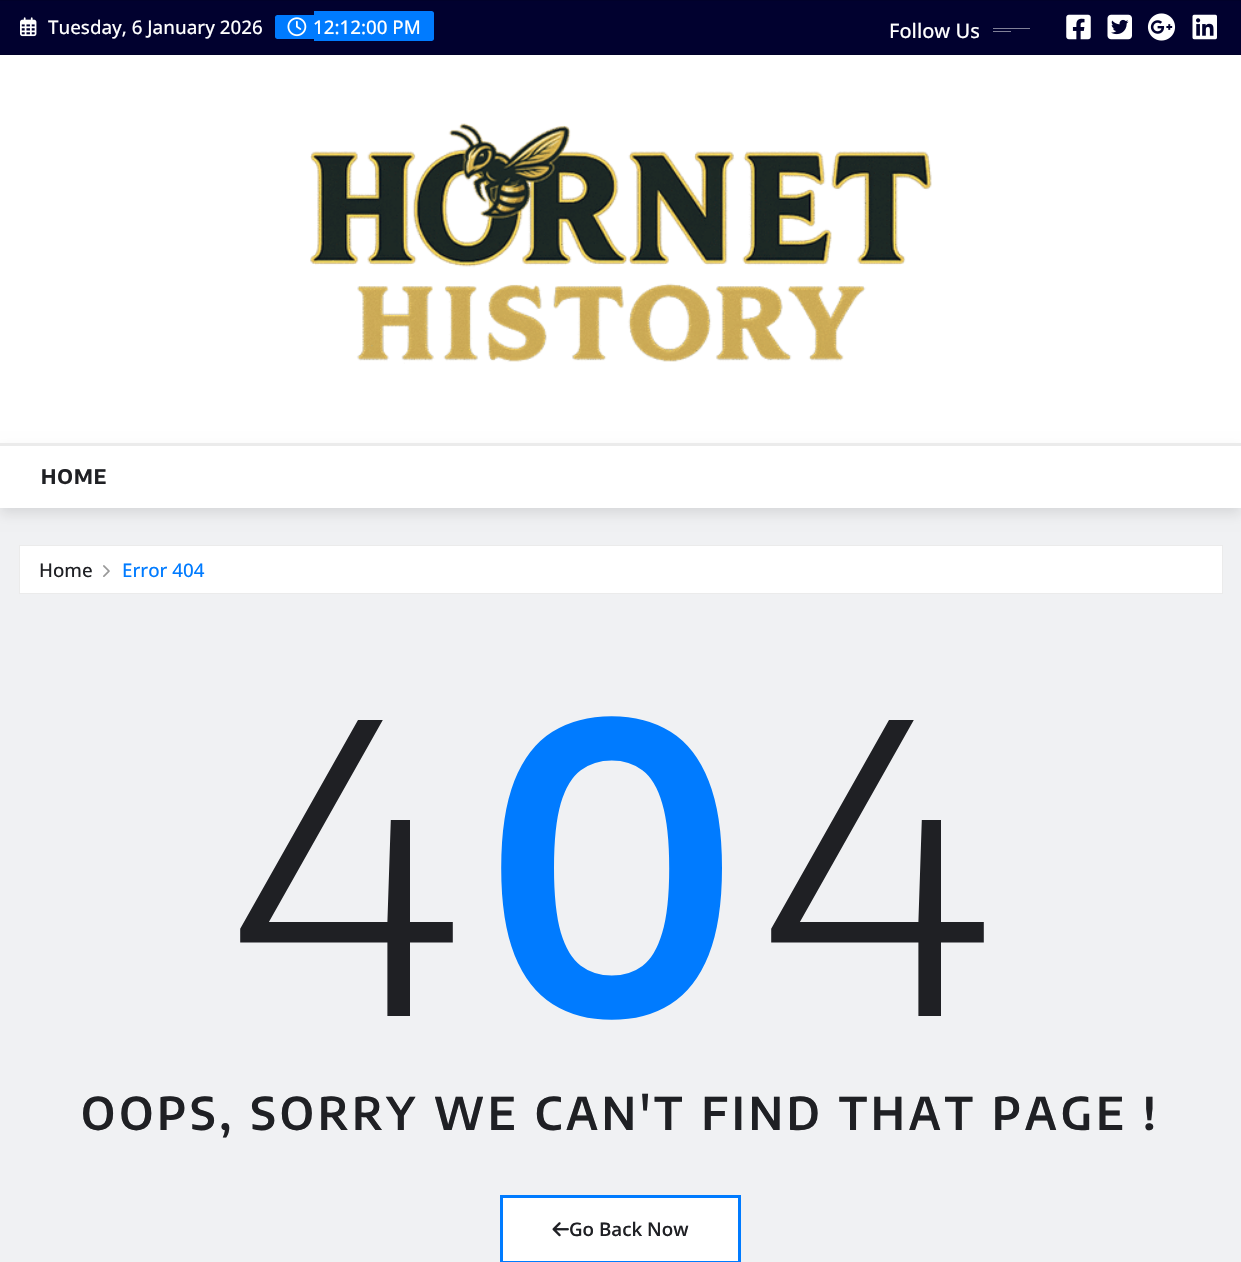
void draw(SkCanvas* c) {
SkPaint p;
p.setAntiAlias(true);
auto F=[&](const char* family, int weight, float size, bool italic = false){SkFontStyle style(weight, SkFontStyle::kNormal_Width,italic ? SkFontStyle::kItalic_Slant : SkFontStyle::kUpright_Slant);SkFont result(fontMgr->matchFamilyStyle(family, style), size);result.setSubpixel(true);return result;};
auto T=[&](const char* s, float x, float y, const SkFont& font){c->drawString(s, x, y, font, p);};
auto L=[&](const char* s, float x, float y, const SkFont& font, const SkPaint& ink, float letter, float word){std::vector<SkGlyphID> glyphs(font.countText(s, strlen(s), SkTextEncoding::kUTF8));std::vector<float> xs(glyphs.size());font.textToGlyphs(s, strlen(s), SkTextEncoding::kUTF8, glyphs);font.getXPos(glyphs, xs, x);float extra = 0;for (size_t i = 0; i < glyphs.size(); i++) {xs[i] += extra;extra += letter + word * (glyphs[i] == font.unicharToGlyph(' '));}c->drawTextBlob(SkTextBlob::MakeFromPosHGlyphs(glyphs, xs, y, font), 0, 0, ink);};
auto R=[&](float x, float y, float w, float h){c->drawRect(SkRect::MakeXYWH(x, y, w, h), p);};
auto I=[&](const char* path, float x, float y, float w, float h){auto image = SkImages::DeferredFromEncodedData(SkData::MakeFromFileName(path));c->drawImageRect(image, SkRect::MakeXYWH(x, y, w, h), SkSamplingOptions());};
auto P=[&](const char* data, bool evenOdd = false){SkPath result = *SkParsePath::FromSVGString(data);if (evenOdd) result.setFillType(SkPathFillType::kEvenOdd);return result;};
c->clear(0xfff0f1f3);
p.setColor(0xff01012f);
R(0,1,1241,53);
p.setColor(0xff01012a);
R(0,0,1241,1);
R(0,54,1241,1);
I("1.png",20,17,17,20);
auto f1 = F("Open Sans",500,18.75);
p.setColor(0xffffffff);
T("Tuesday, 6 January 2026",48,34,f1);
p.setColor(0xff007bff);
c->drawPath(P("M277.5 15h36.5v24h-36.5c-1.5 0-2.5-1-2.5-2.5v-19c0-1.5 1-2.5 2.5-2.5z"),p);
I("2.png",287,17,20,20);
c->drawPath(P("M314 11h117.5c1.5 0 2.5 1 2.5 2.5v25c0 1.5-1 2.5-2.5 2.5h-117.5z"),p);
p.setColor(0xffffffff);
T("12:12:00 PM",313,34,f1);
auto f2 = F("Open Sans",500,20);
T("Follow Us",889,38,f2);
p.setColor(0xff808097);
R(993,28,37,1);
R(993,31,18,1);
I("3.png",1066,14,25,26);
I("4.png",1107,14,25,26);
I("5.png",1147,13,29,28);
I("6.png",1192,14,25,26);
p.setColor(0xffffffff);
R(0,55,1241,388);
I("7.png",310,123,622,241);
p.setColor(0x1a000000);
p.setMaskFilter(SkMaskFilter::MakeBlur(kNormal_SkBlurStyle, 6));
c->drawRect(SkRect::MakeXYWH(0,449,1241,65),p);
p.setMaskFilter(nullptr);
p.setColor(0xffffffff);
R(0,446,1241,62);
p.setColor(0xffebebeb);
R(0,443,1241,3);
auto f3 = F("Encode Sans Condensed",700,20);
p.setColor(0xff1f2024);
L("HOME",41,484,f3,p,1,0);
p.setColor(0xffffffff);
c->drawRect(SkRect::MakeXYWH(19.5,545.5,1203,48),p);
p.setStroke(true);
p.setStrokeWidth(1);
p.setColor(0xffebebeb);
c->drawRect(SkRect::MakeXYWH(19.5,545.5,1203,48),p);
p.setStroke(false);
p.setColor(0xff1f2024);
T("Home",39,577,f1);
I("8.png",103,565,7,12);
p.setColor(0xff007bff);
T("Error 404",122,577,f1);
auto f4 = F("Encode Sans Condensed",300,400);
p.setColor(0xff1f2024);
L("4",230,1016,f4,p,19,0);
auto f5 = F("Encode Sans Condensed",600,400);
p.setColor(0xff007bff);
L("0",481,1016,f5,p,19,0);
p.setColor(0xff1f2024);
L("4",761,1016,f4,p,19,0);
auto f6 = F("Encode Sans Condensed",600,45);
L("OOPS, SORRY WE CAN'T FIND THAT PAGE !",81,1130,f6,p,4,0);
p.setColor(0xffffffff);
c->drawRect(SkRect::MakeXYWH(501.5,1196.5,238,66),p);
p.setStroke(true);
p.setStrokeWidth(3);
p.setColor(0xff007bff);
c->drawRect(SkRect::MakeXYWH(501.5,1196.5,238,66),p);
I("9.png",552,1222,17,15);
auto f7 = F("Open Sans",600,18.75);
p.setStroke(false);
p.setColor(0xff1f2024);
T("Go Back Now",569,1236,f7);
}
